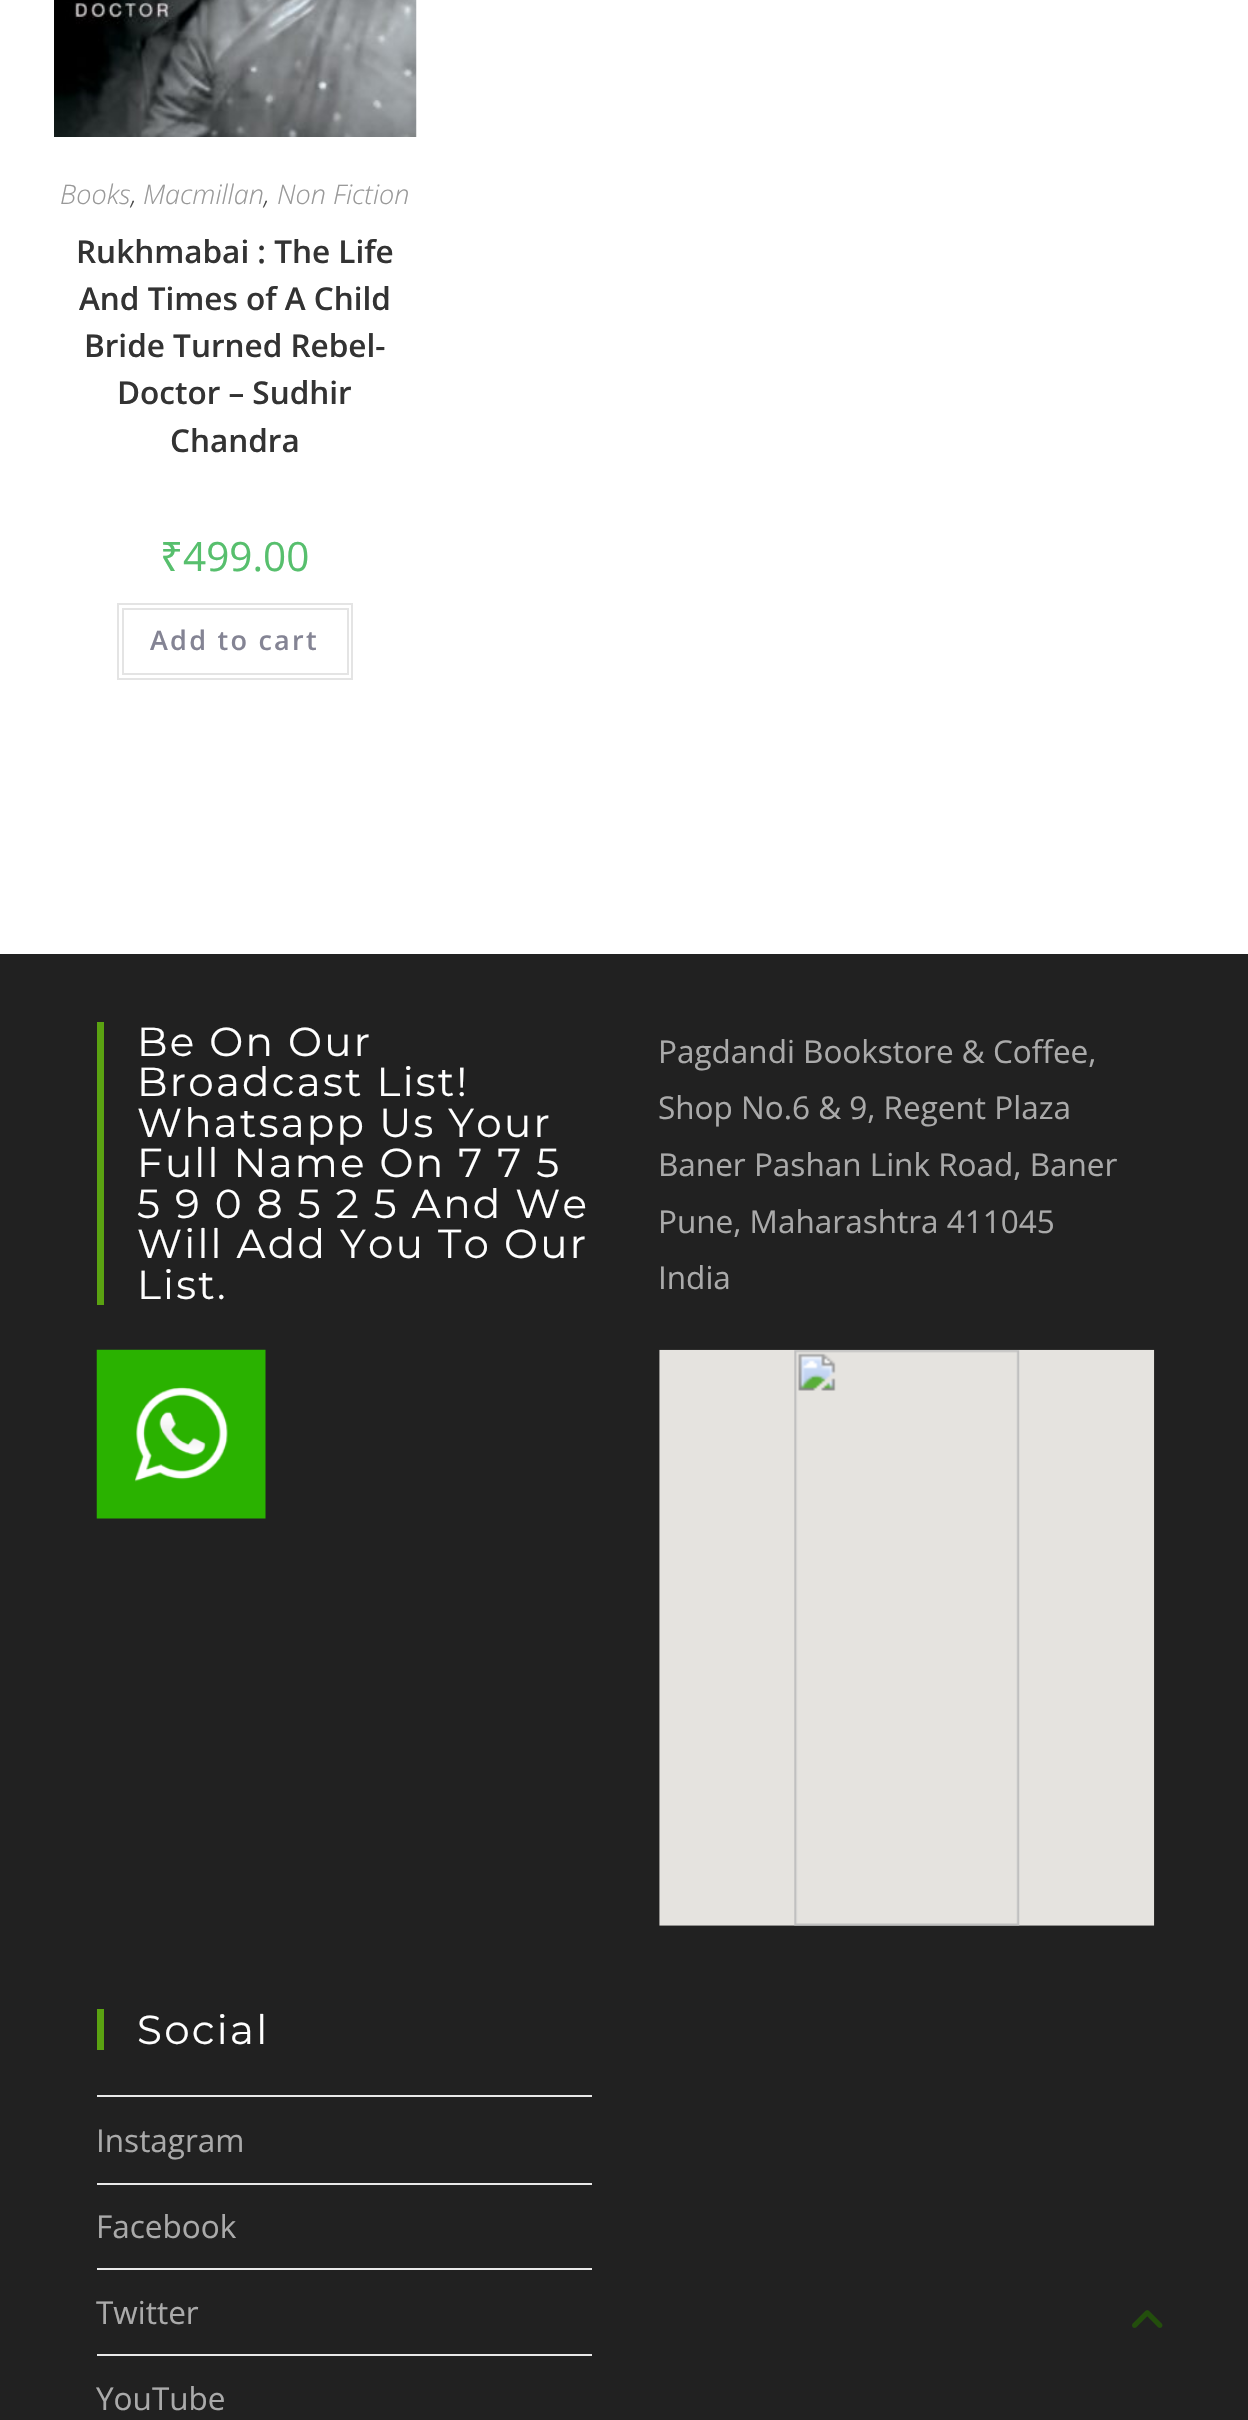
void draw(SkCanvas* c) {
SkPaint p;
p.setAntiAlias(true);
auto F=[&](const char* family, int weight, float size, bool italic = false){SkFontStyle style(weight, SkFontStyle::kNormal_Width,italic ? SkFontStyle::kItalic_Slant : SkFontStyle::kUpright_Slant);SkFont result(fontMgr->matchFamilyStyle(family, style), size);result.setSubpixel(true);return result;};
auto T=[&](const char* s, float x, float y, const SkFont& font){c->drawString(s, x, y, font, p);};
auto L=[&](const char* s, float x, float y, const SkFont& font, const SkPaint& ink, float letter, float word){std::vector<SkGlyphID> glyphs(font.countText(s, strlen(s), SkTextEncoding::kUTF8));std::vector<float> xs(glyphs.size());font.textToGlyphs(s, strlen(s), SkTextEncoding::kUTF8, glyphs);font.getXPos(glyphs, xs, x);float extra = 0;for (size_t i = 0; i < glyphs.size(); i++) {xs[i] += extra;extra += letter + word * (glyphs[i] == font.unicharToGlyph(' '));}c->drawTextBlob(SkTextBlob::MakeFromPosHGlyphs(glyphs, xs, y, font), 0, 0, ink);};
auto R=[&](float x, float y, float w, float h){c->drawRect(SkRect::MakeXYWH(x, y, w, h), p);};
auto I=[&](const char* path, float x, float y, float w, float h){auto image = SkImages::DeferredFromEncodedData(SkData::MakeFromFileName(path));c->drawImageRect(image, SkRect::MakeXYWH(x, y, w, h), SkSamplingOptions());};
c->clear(0xffffffff);
I("1.png",54,0,363,137);
auto f1 = F("Open Sans",300,27,true);
p.setColor(0xff999999);
T("Books",60,204,f1);
p.setColor(0xff4a4a4a);
T(",",131,204,f1);
p.setColor(0xff999999);
T("Macmillan",143,204,f1);
p.setColor(0xff4a4a4a);
T(",",264,204,f1);
p.setColor(0xff999999);
T("Non Fiction",277,204,f1);
auto f2 = F("Open Sans",600,31.5);
p.setColor(0xff333333);
T("Rukhmabai : The Life",76,263,f2);
T("And Times of A Child",79,310,f2);
T("Bride Turned Rebel-",84,357,f2);
T("Doctor – Sudhir",117,404,f2);
T("Chandra",170,452,f2);
auto f3 = F("Noto Sans",400,40.5);
p.setColor(0xff57bf6d);
T("₹",160,571,f3);
auto f4 = F("Open Sans",400,40.5);
T("499.00",183,571,f4);
p.setStroke(true);
p.setStrokeWidth(2);
p.setColor(0xffe4e4e4);
c->drawRect(SkRect::MakeXYWH(118,604,234,75),p);
c->drawRect(SkRect::MakeXYWH(123,609,225,65),p);
auto f5 = F("Open Sans",600,27);
p.setStroke(false);
p.setColor(0xff848494);
L("Add to cart",150,650,f5,p,2.25,0);
p.setColor(0xff212121);
R(0,954,1248,1466);
p.setColor(0xff5aa211);
R(97,1022,7,283);
auto f6 = F("Montserrat",400,40.5);
p.setColor(0xffffffff);
L("Be On Our",137,1056,f6,p,2.25,0);
L("Broadcast List!",137,1096,f6,p,2.25,0);
L("Whatsapp Us Your",137,1137,f6,p,2.25,0);
L("Full Name On 7 7 5",137,1177,f6,p,2.25,0);
L("5 9 0 8 5 2 5 And We",137,1218,f6,p,2.25,0);
L("Will Add You To Our",137,1258,f6,p,2.25,0);
L("List.",137,1299,f6,p,2.25,0);
I("2.png",96,1349,170,170);
auto f7 = F("Open Sans",400,31.5);
p.setColor(0xffaaaaaa);
T("Pagdandi Bookstore & Coffee,",658,1063,f7);
T("Shop No.6 & 9, Regent Plaza",658,1119,f7);
T("Baner Pashan Link Road, Baner",658,1176,f7);
T("Pune, Maharashtra 411045",658,1233,f7);
T("India",658,1289,f7);
I("3.png",659,1349,496,577);
p.setColor(0xff5aa211);
R(97,2009,7,41);
p.setColor(0xffffffff);
L("Social",137,2044,f6,p,2.25,0);
p.setColor(0xffe9e9e9);
R(97,2095,495,2);
R(97,2183,495,2);
p.setColor(0xffaaaaaa);
T("Instagram",96,2152,f7);
p.setColor(0xffe9e9e9);
R(97,2268,495,2);
p.setColor(0xffaaaaaa);
T("Facebook",96,2238,f7);
p.setColor(0xffe9e9e9);
R(97,2354,495,2);
p.setColor(0xffaaaaaa);
T("Twitter",96,2324,f7);
T("YouTube",96,2410,f7);
I("4.png",1132,2310,31,18);
}
